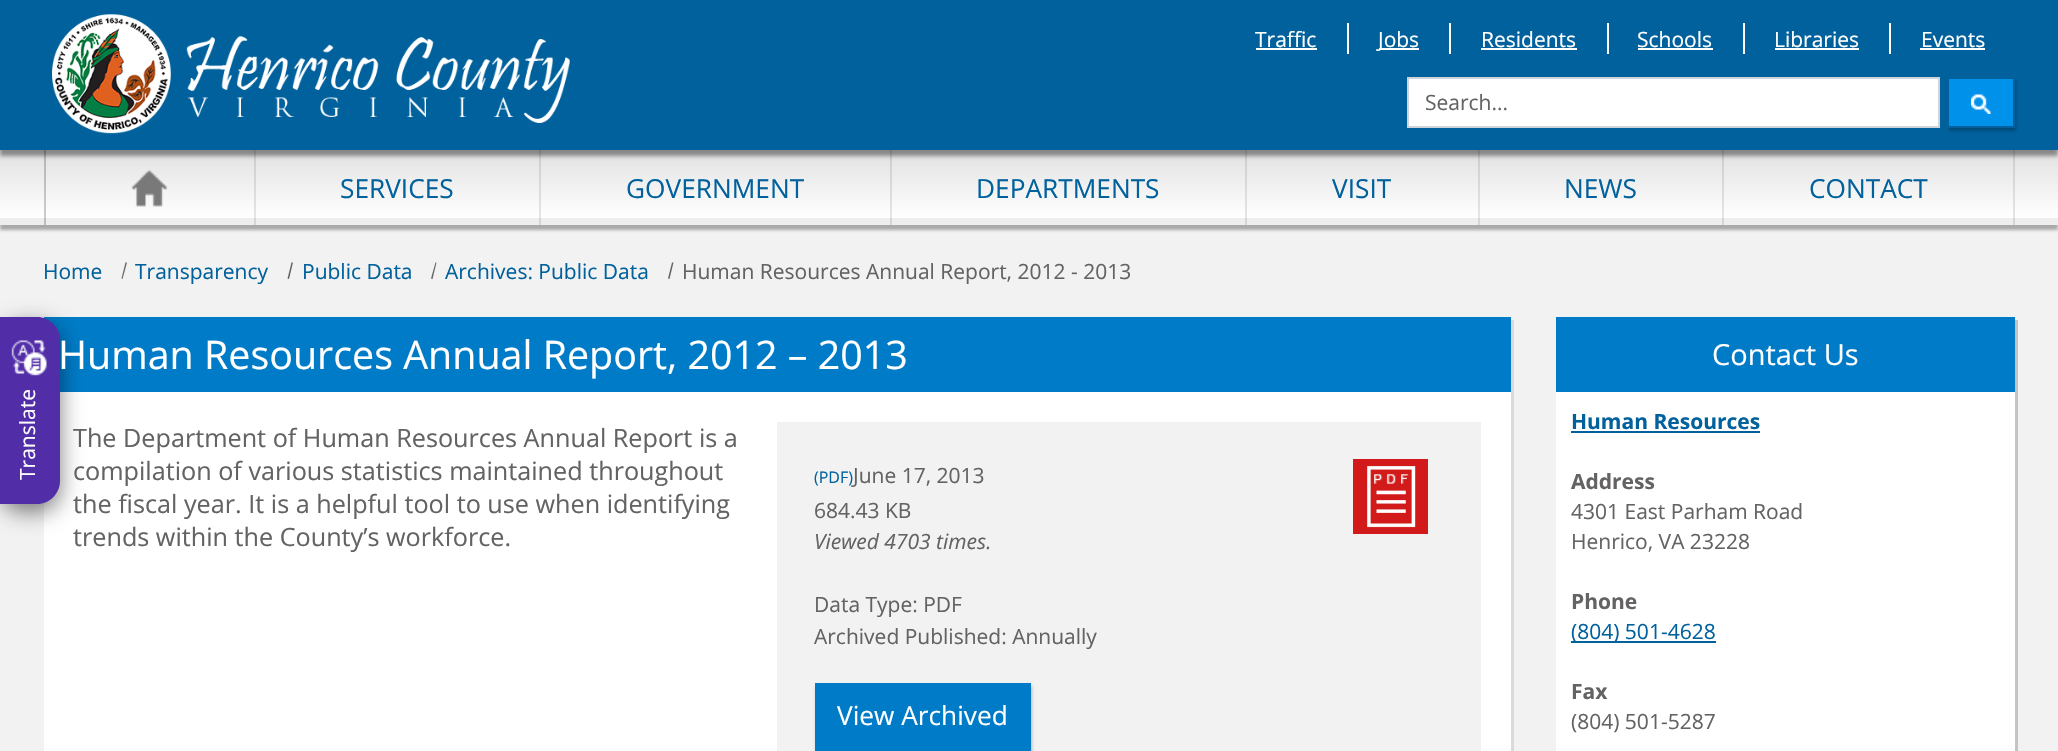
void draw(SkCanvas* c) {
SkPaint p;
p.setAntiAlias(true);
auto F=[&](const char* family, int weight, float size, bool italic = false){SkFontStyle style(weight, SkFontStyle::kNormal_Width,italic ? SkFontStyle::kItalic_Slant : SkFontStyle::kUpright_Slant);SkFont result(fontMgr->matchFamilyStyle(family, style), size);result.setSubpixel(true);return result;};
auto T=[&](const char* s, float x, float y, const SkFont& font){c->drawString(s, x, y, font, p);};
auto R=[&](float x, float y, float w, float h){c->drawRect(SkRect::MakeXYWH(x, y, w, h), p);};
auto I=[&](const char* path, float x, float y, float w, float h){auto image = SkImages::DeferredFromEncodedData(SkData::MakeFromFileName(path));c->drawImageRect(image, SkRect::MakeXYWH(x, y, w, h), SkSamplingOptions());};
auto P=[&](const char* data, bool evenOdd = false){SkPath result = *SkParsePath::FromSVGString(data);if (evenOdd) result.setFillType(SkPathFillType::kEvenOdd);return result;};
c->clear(0xfff2f2f2);
p.setColor(0xffdadada);
c->drawPath(P("M47 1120v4h1467v-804h-4v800z"),p);
p.setColor(0xffffffff);
R(44,392,1467,359);
p.setColor(0xff007bc7);
R(44,317,1467,75);
p.setColor(0x80000000);
p.setMaskFilter(SkMaskFilter::MakeBlur(kNormal_SkBlurStyle, 11));
c->drawRoundRect(SkRect::MakeXYWH(0,324,60,188),23,23,p);
p.setMaskFilter(nullptr);
p.setColor(0xff512da8);
c->drawPath(P("M0 317h37c12.5 0 23 10.5 23 23v141c0 12.5-10.5 23-23 23h-37z"),p);
I("1.png",11,340,36,36);
auto f1 = F("Open Sans",400,21);
p.setColor(0xffffffff);
c->save();
c->rotate(-90,35,480);
T("Translate",35,480,f1);
c->restore();
p.setColor(0x4d000000);
p.setMaskFilter(SkMaskFilter::MakeBlur(kNormal_SkBlurStyle, 1.5));
c->drawRect(SkRect::MakeXYWH(0,155,2058,75),p);
p.setMaskFilter(nullptr);
{
const SkColor colors[] = {0xffe1e1e1,0xffffffff};
const float stops[] = {0,1};
const SkPoint ends[] = {{1029,150}, {1029,218}};
p.setShader(SkGradientShader::MakeLinear(ends, colors, stops, 2, SkTileMode::kClamp));
p.setAlpha(255);
}
R(0,150,2058,68);
{
const SkColor colors[] = {0xffcbcbcb,0xffe6e6e6};
const float stops[] = {0,1};
const SkPoint ends[] = {{1029,150}, {1029,218}};
p.setShader(SkGradientShader::MakeLinear(ends, colors, stops, 2, SkTileMode::kClamp));
p.setAlpha(255);
}
R(2013,150,2,68);
R(1722,150,2,68);
R(1478,150,2,68);
R(1245,150,2,68);
R(890,150,2,68);
R(539,150,2,68);
{
const SkColor colors[] = {0xffb4b4b4,0xffcccccc};
const float stops[] = {0,1};
const SkPoint ends[] = {{1029,150}, {1029,218}};
p.setShader(SkGradientShader::MakeLinear(ends, colors, stops, 2, SkTileMode::kClamp));
p.setAlpha(255);
}
R(44,150,2,68);
{
const SkColor colors[] = {0xffcbcbcb,0xffe6e6e6};
const float stops[] = {0,1};
const SkPoint ends[] = {{1029,150}, {1029,218}};
p.setShader(SkGradientShader::MakeLinear(ends, colors, stops, 2, SkTileMode::kClamp));
p.setAlpha(255);
}
R(254,150,2,68);
p.setShader(nullptr);
p.setColor(0x66000000);
p.setMaskFilter(SkMaskFilter::MakeBlur(kNormal_SkBlurStyle, 2));
c->drawRect(SkRect::MakeXYWH(0,6,2058,150),p);
p.setMaskFilter(nullptr);
p.setColor(0xff01619d);
R(0,0,2058,150);
I("2.png",52,14,518,120);
p.setColor(0xffffffff);
R(1347,23,2,31);
T("Traffic",1255,47,f1);
R(1256,48,61,2);
R(1449,23,2,31);
R(1379,48,40,2);
T("Jobs",1378,47,f1);
R(1607,23,2,31);
T("Residents",1481,47,f1);
R(1481,48,96,2);
R(1743,23,2,31);
T("Schools",1637,47,f1);
R(1638,48,75,2);
R(1889,23,2,31);
T("Libraries",1774,47,f1);
R(1775,48,84,2);
T("Events",1921,47,f1);
R(1920,48,65,2);
c->drawRect(SkRect::MakeXYWH(1408,78,531,49),p);
p.setStroke(true);
p.setStrokeWidth(2);
p.setColor(0xffced4da);
c->drawRect(SkRect::MakeXYWH(1408,78,531,49),p);
p.setStroke(false);
p.setColor(0xff646262);
T("Search...",1425,110,f1);
p.setColor(0x3d000000);
p.setMaskFilter(SkMaskFilter::MakeBlur(kNormal_SkBlurStyle, 1.5));
c->drawRect(SkRect::MakeXYWH(1949,80,67,51),p);
p.setMaskFilter(nullptr);
p.setColor(0xff0091ea);
c->drawRect(SkRect::MakeXYWH(1948,78,66,49),p);
p.setStroke(true);
p.setColor(0xff01619d);
c->drawRect(SkRect::MakeXYWH(1948,78,66,49),p);
I("3.png",1971,94,20,20);
p.setStroke(false);
p.setColor(0xffeeeeee);
R(0,218,2058,7);
p.setColor(0xffd6d6d6);
R(2013,218,2,7);
R(1722,218,2,7);
R(1478,218,2,7);
R(1245,218,2,7);
R(890,218,2,7);
R(539,218,2,7);
p.setColor(0xffbebebe);
R(44,218,2,7);
p.setColor(0xffd6d6d6);
R(254,218,2,7);
I("4.png",131,169,37,38);
auto f2 = F("Open Sans",400,26.25);
p.setColor(0xff01619d);
T("SERVICES",340,198,f2);
T("GOVERNMENT",626,198,f2);
T("DEPARTMENTS",976,198,f2);
T("VISIT",1332,198,f2);
T("NEWS",1564,198,f2);
T("CONTACT",1809,198,f2);
T("Home",43,279,f1);
p.setColor(0xff646262);
c->drawPath(P("M125.5 262.5h1.5l-4.5 16.5l-1-.5z"),p);
p.setColor(0xff01619d);
T("Transparency",135,279,f1);
p.setColor(0xff646262);
c->drawPath(P("M291.5 262.5h1.5l-4 16.5l-1.5-.5z"),p);
p.setColor(0xff01619d);
T("Public Data",302,279,f1);
p.setColor(0xff646262);
c->drawPath(P("M435.5 262.5h1l-4 16.5l-1.5-.5z"),p);
p.setColor(0xff01619d);
T("Archives: Public Data",445,279,f1);
p.setColor(0xff646262);
c->drawPath(P("M672 262.5h1.5l-4 16.5l-1.5-.5z"),p);
T("Human Resources Annual Report, 2012 - 2013",682,279,f1);
auto f3 = F("Open Sans",400,39.4);
p.setColor(0xffffffff);
T("Human Resources Annual Report, 2012 – 2013",58,369,f3);
auto f4 = F("Open Sans",400,25.2);
p.setColor(0xff646262);
T("The Department of Human Resources Annual Report is a",73,447,f4);
T("compilation of various statistics maintained throughout",73,480,f4);
T("the fiscal year. It is a helpful tool to use when identifying",73,513,f4);
T("trends within the County’s workforce.",73,546,f4);
p.setColor(0xfff2f2f2);
R(777,422,704,329);
auto f5 = F("Open Sans",400,16);
p.setColor(0xff01619d);
T("(PDF)",814,483,f5);
I("5.png",1353,459,75,75);
p.setColor(0xff646262);
T("June 17, 2013",853,483,f1);
T("684.43 KB",814,518,f1);
auto f6 = F("Open Sans",400,21,true);
T("Viewed 4703 times.",814,549,f6);
T("Data Type: PDF",814,612,f1);
T("Archived Published: Annually",814,644,f1);
p.setColor(0x3d000000);
p.setMaskFilter(SkMaskFilter::MakeBlur(kNormal_SkBlurStyle, 1.5));
c->drawRect(SkRect::MakeXYWH(816,686,216,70),p);
p.setMaskFilter(nullptr);
p.setColor(0xff007bc7);
R(815,683,216,68);
p.setColor(0xffffffff);
T("View Archived",837,725,f2);
p.setColor(0xffdadada);
c->drawPath(P("M1559 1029v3h459v-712h-4v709z"),p);
p.setColor(0x1a000000);
c->drawPath(P("M1559 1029v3h459v-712h-4v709z"),p);
p.setColor(0xffffffff);
R(1556,392,459,359);
p.setColor(0xff007bc7);
R(1556,317,459,75);
auto f7 = F("Open Sans",400,29);
p.setColor(0xffffffff);
T("Contact Us",1712,365,f7);
auto f8 = F("Open Sans",700,21);
p.setColor(0xff01619d);
T("Human Resources",1571,429,f8);
R(1571,431,189,2);
p.setColor(0xff646262);
T("Address",1571,489,f8);
T("4301 East Parham Road",1571,519,f1);
T("Henrico, VA 23228",1571,549,f1);
T("Phone",1571,609,f8);
p.setColor(0xff01619d);
R(1571,641,145,2);
T("(804) 501-4628",1571,639,f1);
p.setColor(0xff646262);
T("Fax",1571,699,f8);
T("(804) 501-5287",1571,729,f1);
}
